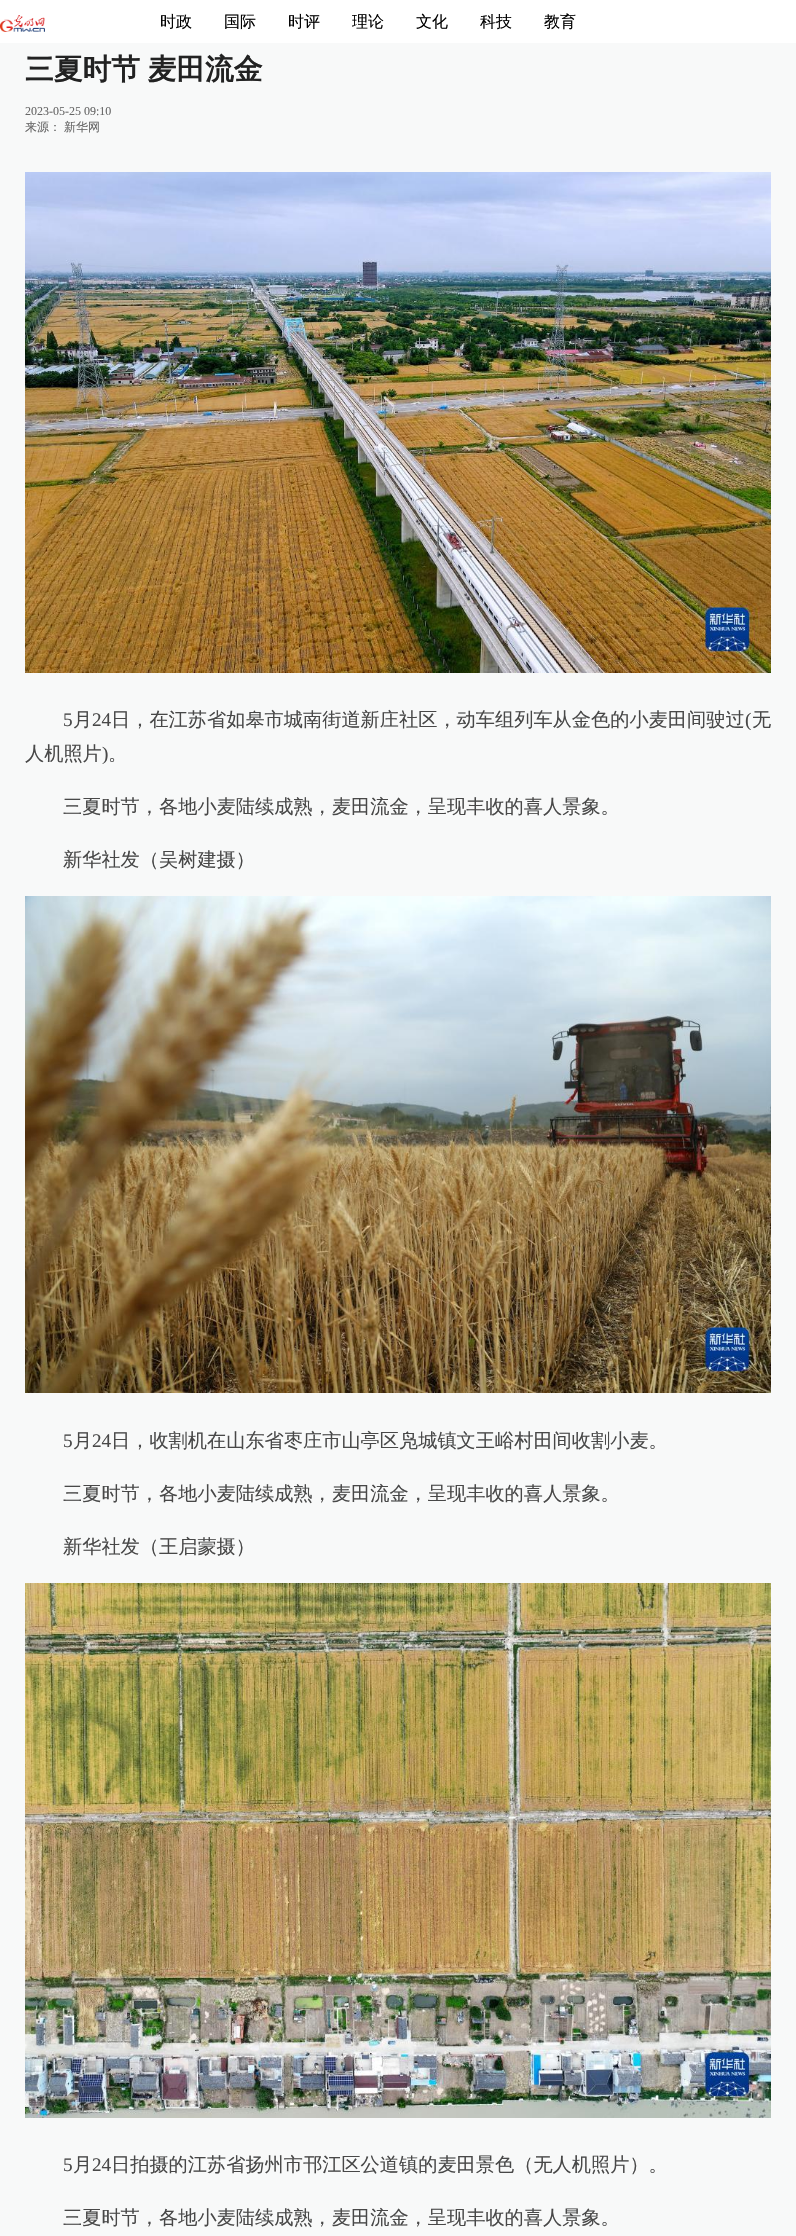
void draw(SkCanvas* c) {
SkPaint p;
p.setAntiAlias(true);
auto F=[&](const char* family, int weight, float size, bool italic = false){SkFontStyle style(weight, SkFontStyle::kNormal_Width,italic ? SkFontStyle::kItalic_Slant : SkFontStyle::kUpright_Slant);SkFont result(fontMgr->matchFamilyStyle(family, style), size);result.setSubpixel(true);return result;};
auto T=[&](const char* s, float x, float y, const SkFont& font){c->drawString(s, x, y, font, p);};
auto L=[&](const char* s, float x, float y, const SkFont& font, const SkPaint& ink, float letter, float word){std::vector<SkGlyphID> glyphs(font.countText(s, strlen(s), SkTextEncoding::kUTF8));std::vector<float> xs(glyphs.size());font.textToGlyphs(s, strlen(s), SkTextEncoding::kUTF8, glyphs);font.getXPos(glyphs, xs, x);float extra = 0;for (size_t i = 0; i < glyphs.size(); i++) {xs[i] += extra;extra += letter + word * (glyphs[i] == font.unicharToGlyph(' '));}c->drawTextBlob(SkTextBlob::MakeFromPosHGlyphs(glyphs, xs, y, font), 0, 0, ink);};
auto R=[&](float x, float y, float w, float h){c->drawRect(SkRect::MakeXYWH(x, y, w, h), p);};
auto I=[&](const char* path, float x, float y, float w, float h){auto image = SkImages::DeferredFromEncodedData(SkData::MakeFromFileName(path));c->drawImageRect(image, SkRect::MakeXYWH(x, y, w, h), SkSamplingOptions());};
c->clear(0xfff8f9f9);
p.setColor(0xffffffff);
R(0,0,796,43);
I("1.png",0,15,45,17);
auto f1 = F("WenQuanYi Zen Hei",500,16);
p.setColor(0xff010101);
T("时政",160,27,f1);
T("国际",224,27,f1);
T("时评",288,27,f1);
T("理论",352,27,f1);
T("文化",416,27,f1);
T("科技",480,27,f1);
T("教育",544,27,f1);
auto f2 = F("WenQuanYi Zen Hei",700,28.75);
p.setColor(0xff222222);
L("三夏时节 麦田流金",25,79,f2,p,0,-1);
auto f3 = F("Liberation Serif",400,12);
p.setColor(0xff666666);
T("2023-05-25 09:10",25,115,f3);
auto f4 = F("WenQuanYi Zen Hei",500,12);
T("来源：",25,131,f4);
T("新华网",64,131,f4);
I("2.png",25,172,746,501);
auto f5 = F("Liberation Serif",400,19.2);
p.setColor(0xff484848);
T("5",63,726,f5);
auto f6 = F("WenQuanYi Zen Hei",500,19.2);
T("月",73,726,f6);
T("24",92,726,f5);
T("日，在江苏省如皋市城南街道新庄社区，动车组列车从金色的小麦田间驶过",111,726,f6);
T("(",745,726,f5);
T("无",752,726,f6);
T("人机照片",25,760,f6);
T(")",102,760,f5);
T("。",108,760,f6);
T("三夏时节，各地小麦陆续成熟，麦田流金，呈现丰收的喜人景象。",63,813,f6);
T("新华社发（吴树建摄）",63,866,f6);
I("3.png",25,896,746,497);
T("5",63,1447,f5);
T("月",73,1447,f6);
T("24",92,1447,f5);
T("日，收割机在山东省枣庄市山亭区凫城镇文王峪村田间收割小麦。",111,1447,f6);
T("三夏时节，各地小麦陆续成熟，麦田流金，呈现丰收的喜人景象。",63,1500,f6);
T("新华社发（王启蒙摄）",63,1553,f6);
I("4.png",25,1583,746,535);
T("5",63,2171,f5);
T("月",73,2171,f6);
T("24",92,2171,f5);
T("日拍摄的江苏省扬州市邗江区公道镇的麦田景色（无人机照片）。",111,2171,f6);
T("三夏时节，各地小麦陆续成熟，麦田流金，呈现丰收的喜人景象。",63,2224,f6);
}
